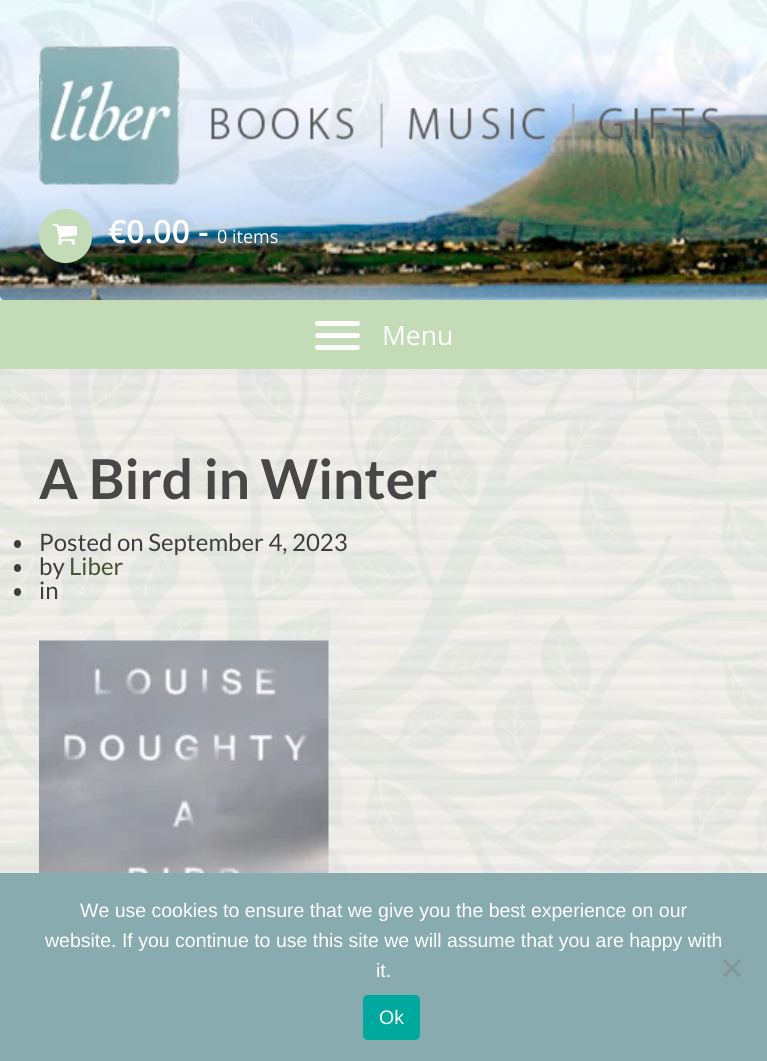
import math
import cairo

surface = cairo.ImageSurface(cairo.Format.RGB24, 767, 1061)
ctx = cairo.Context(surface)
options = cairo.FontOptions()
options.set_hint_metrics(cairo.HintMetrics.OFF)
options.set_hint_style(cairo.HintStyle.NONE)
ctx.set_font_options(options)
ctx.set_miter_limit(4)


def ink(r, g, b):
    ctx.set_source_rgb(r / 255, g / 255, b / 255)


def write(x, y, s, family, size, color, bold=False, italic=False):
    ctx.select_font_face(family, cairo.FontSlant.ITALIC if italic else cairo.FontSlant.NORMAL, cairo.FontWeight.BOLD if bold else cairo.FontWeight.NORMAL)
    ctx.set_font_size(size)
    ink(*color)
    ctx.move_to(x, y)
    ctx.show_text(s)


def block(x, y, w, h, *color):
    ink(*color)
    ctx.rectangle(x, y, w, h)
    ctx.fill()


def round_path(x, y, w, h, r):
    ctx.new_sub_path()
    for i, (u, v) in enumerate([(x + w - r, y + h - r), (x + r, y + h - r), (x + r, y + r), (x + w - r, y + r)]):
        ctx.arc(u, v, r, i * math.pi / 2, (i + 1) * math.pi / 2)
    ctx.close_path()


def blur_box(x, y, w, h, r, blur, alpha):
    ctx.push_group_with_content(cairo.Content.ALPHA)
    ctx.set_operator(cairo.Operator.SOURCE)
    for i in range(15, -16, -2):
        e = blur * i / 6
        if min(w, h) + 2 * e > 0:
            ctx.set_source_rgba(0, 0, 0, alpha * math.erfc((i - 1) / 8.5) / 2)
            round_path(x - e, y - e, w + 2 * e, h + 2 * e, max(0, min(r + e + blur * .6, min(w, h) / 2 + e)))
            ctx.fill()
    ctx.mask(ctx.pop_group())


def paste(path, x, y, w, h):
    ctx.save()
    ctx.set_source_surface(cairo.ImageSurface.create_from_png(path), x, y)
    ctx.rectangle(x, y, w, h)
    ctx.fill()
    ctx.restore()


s1 = dict(family="Open Sans SemiBold", size=32, color=(255, 255, 255))
s2 = dict(family="Open Sans", size=18, color=(255, 255, 255))
s3 = dict(family="Open Sans", size=26.5, color=(255, 255, 255))
s4 = dict(family="Lato", size=55, color=(71, 71, 71), bold=True)
s5 = dict(family="Lato", size=24, color=(62, 62, 62))
s6 = dict(family="Lato", size=24, color=(71, 82, 48))
s7 = dict(family="Liberation Sans", size=19.5, color=(255, 255, 255))

ink(255, 255, 255)
ctx.paint()
paste("pic1.png", 0, 296, 767, 577)
paste("pic2.png", 0, 298, 767, 575)
paste("pic3.png", 0, 0, 767, 300)
paste("pic4.png", 39, 45, 680, 140)
ink(196, 219, 184)
round_path(39, 209, 53, 54, 26.5)
ctx.fill()
paste("pic5.png", 52, 224, 25, 21)
write(108, 243, "€0.00 -", **s1)
write(217, 243, "0 items", **s2)
block(0, 300, 767, 69, 196, 219, 184)
ink(255, 255, 255)
round_path(315, 321, 45, 5, 2.5)
ctx.fill()
round_path(315, 333, 45, 5, 2.5)
ctx.fill()
round_path(315, 345, 45, 5, 2.5)
ctx.fill()
write(382, 345, "Menu", **s3)
write(39, 499, "A Bird in Winter", **s4)
ink(62, 62, 62)
round_path(14, 540, 7, 8, 3.5)
ctx.fill()
write(39, 551, "Posted on September 4, 2023", **s5)
round_path(14, 564, 7, 8, 3.5)
ctx.fill()
write(39, 575, "by", **s5)
write(69, 575, "Liber", **s6)
ink(62, 62, 62)
round_path(14, 588, 7, 8, 3.5)
ctx.fill()
write(39, 599, "in", **s5)
paste("pic6.png", 39, 640, 290, 233)
ink(161, 161, 161)
blur_box(66, 900, 636, 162, 8, 15, 0.95)
block(0, 873, 767, 188, 135, 171, 175)
write(80, 917, "We use cookies to ensure that we give you the best experience on our", **s7)
write(45, 947, "website. If you continue to use this site we will assume that you are happy with", **s7)
write(376, 977, "it.", **s7)
ink(132, 150, 152)
ctx.new_path()
ctx.move_to(739, 959)
ctx.line_to(741, 961.5)
ctx.line_to(725, 977.5)
ctx.line_to(723, 975)
ctx.close_path()
ctx.fill()
ctx.new_path()
ctx.move_to(723, 961.5)
ctx.line_to(725, 959)
ctx.line_to(741, 975)
ctx.line_to(739, 977.5)
ctx.close_path()
ctx.fill()
ink(0, 169, 157)
round_path(363, 995, 57, 45, 5)
ctx.fill()
write(379, 1024, "Ok", **s7)
surface.write_to_png("screenshot.png")
